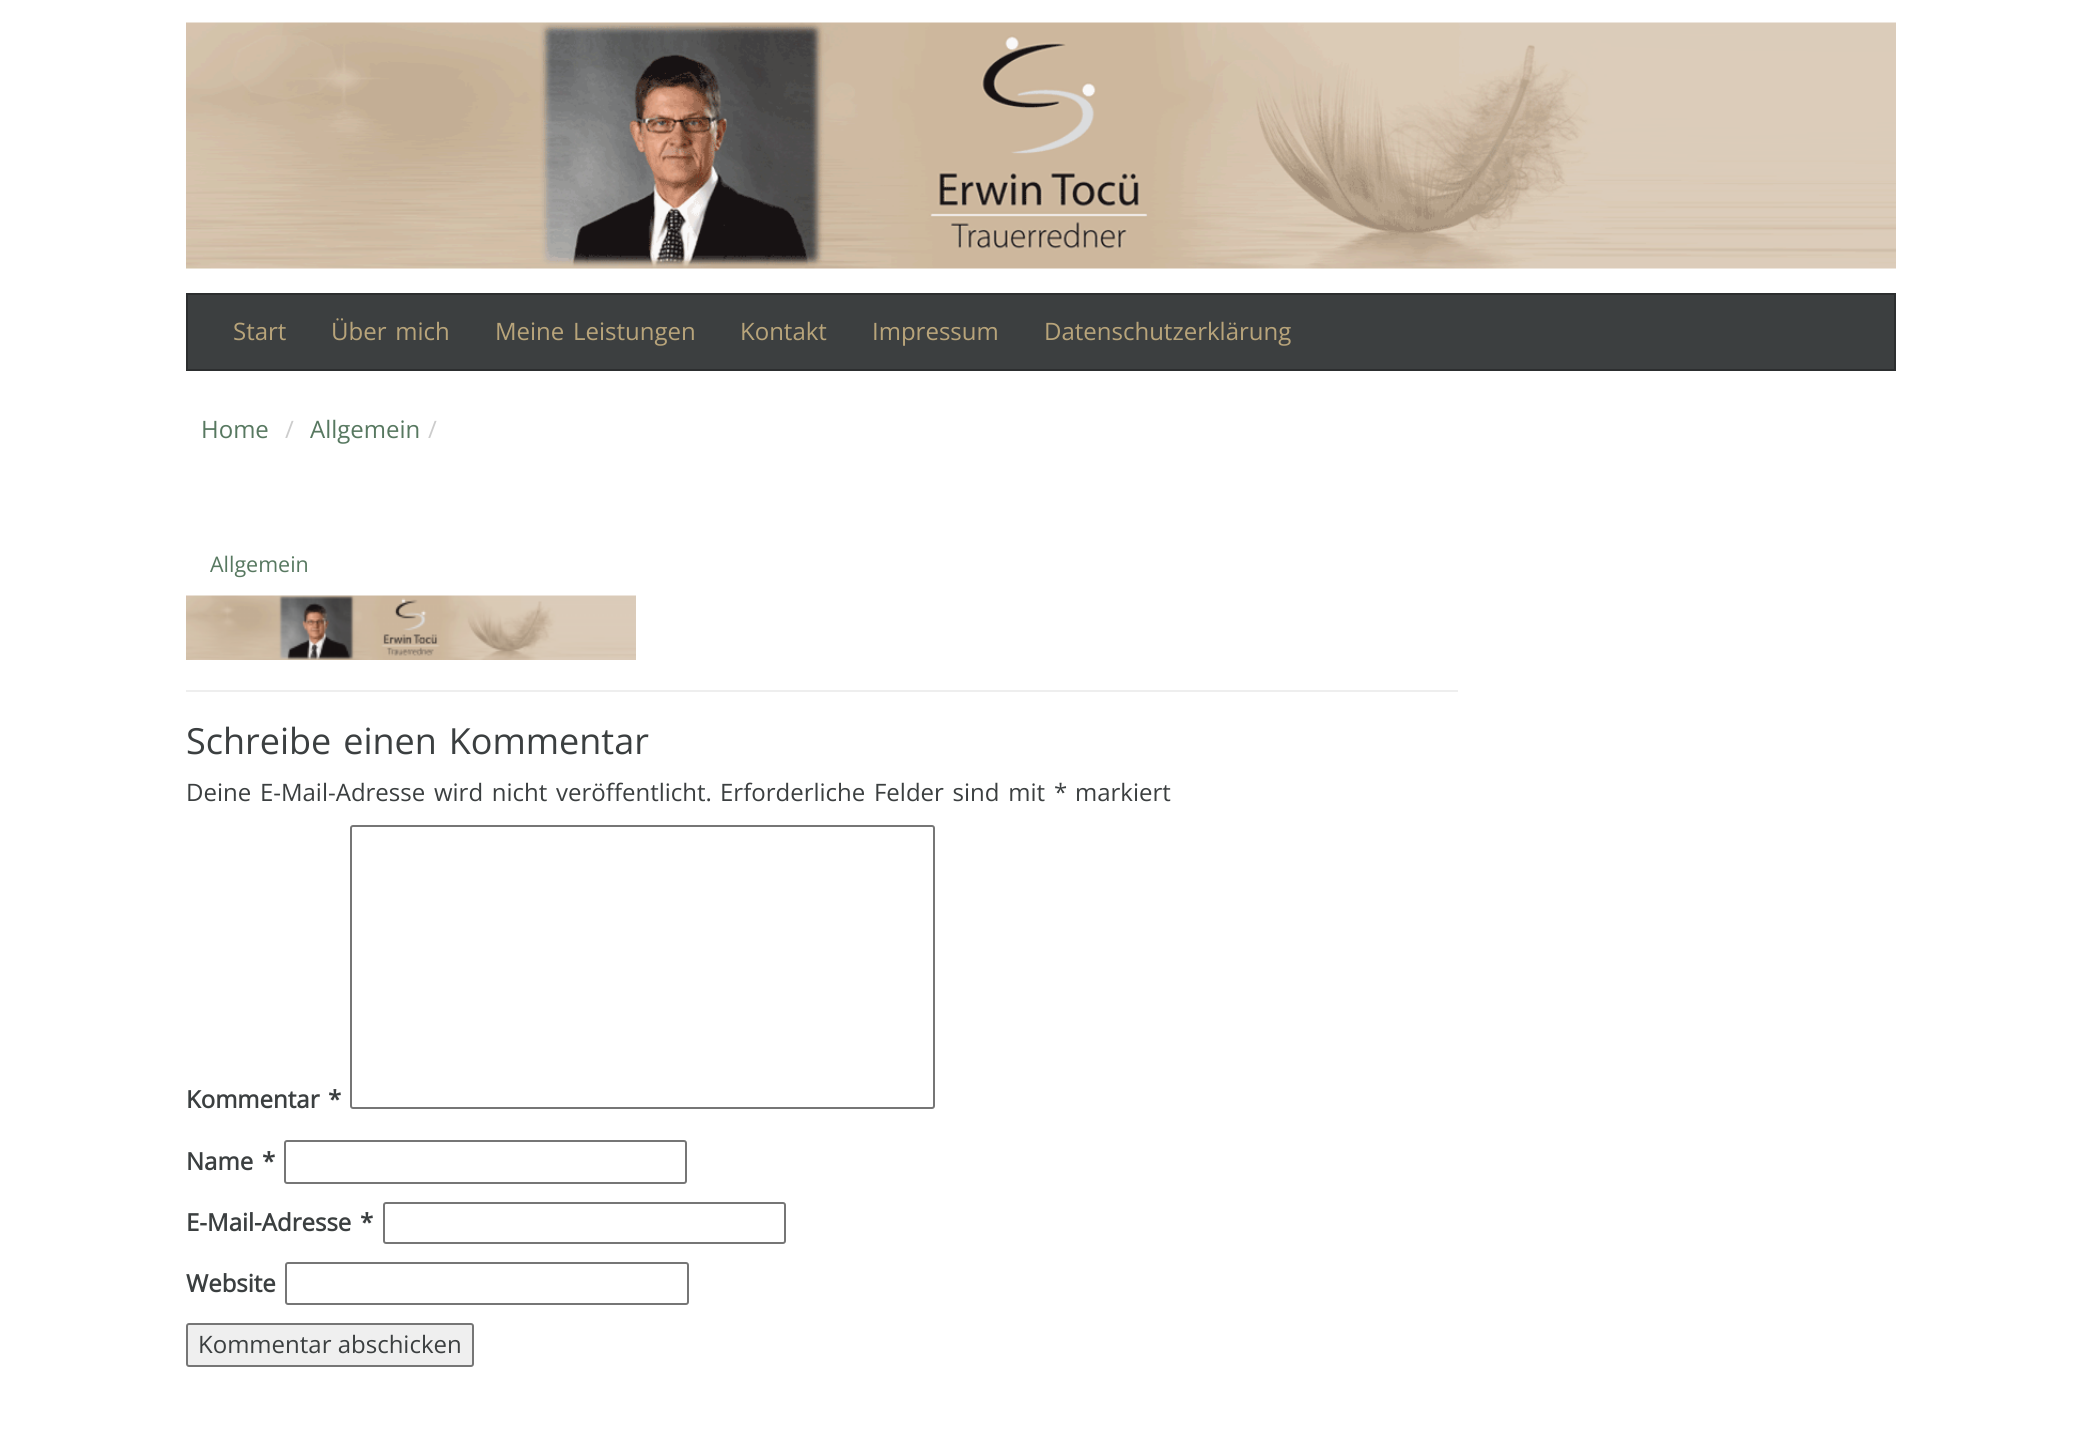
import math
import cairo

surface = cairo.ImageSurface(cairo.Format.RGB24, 2081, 1431)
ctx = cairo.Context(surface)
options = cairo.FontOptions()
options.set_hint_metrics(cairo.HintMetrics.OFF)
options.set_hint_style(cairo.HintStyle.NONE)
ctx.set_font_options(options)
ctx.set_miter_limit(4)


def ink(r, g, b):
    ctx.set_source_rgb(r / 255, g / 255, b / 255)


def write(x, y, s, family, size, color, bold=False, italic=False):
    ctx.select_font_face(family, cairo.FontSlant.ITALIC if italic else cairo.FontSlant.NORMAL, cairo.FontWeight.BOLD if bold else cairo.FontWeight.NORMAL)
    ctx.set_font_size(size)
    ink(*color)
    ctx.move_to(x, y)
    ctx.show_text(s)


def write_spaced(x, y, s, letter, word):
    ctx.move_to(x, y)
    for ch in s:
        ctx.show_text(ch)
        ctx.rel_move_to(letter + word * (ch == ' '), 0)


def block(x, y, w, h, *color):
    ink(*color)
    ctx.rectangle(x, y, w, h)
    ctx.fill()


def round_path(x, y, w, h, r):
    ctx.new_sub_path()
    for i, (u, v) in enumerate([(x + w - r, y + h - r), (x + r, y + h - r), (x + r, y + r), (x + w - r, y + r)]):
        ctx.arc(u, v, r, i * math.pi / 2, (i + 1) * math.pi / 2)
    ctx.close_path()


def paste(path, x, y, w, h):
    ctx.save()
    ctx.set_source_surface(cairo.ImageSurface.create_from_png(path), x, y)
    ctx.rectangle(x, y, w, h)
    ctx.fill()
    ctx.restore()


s1 = dict(family="Open Sans", size=24, color=(184, 164, 122))
s2 = dict(family="Open Sans", size=24, color=(87, 120, 96))
s3 = dict(family="Open Sans", size=24, color=(204, 204, 204))
s4 = dict(family="Open Sans", size=21.5, color=(87, 120, 96))
s5 = dict(family="Open Sans", size=24, color=(59, 63, 64))
s6 = dict(family="Open Sans", size=24, color=(59, 63, 64), bold=True)

ink(255, 255, 255)
ctx.paint()
paste("pic1.png", 186, 22, 1710, 247)
ink(60, 63, 64)
ctx.rectangle(187, 294, 1708, 76)
ctx.fill_preserve()
ink(44, 46, 47)
ctx.stroke()
write(233, 340, "Start", **s1)
write_spaced(331, 340, "Über mich", 0, 2.5)
write_spaced(495, 340, "Meine Leistungen", 0, 2.5)
write(740, 340, "Kontakt", **s1)
write(872, 340, "Impressum", **s1)
write(1044, 340, "Datenschutzerklärung", **s1)
write(201, 438, "Home", **s2)
write(285, 438, "/", **s3)
write(310, 438, "Allgemein", **s2)
write(428, 438, "/", **s3)
write(210, 572, "Allgemein", **s4)
paste("pic2.png", 186, 595, 450, 65)
block(186, 690, 1272, 2, 238, 238, 238)
ctx.set_font_size(36)
ink(59, 63, 64)
write_spaced(186, 754, "Schreibe einen Kommentar", 0, 2.5)
ctx.set_font_size(24)
write_spaced(186, 801, "Deine E-Mail-Adresse wird nicht veröffentlicht.", 0, 2.5)
write_spaced(720, 801, "Erforderliche Felder sind mit", 0, 2.5)
write(1054, 801, "*", **s5)
write(1075, 801, "markiert", **s5)
write(186, 1108, "Kommentar", **s6)
write(328, 1108, "*", **s6)
round_path(351, 826, 583, 282, 2)
ink(118, 118, 118)
ctx.stroke()
write(186, 1170, "Name", **s6)
write(262, 1170, "*", **s6)
round_path(285, 1141, 401, 42, 2)
ink(118, 118, 118)
ctx.stroke()
write(186, 1231, "E-Mail-Adresse", **s6)
write(360, 1231, "*", **s6)
round_path(384, 1203, 401, 40, 2)
ink(118, 118, 118)
ctx.stroke()
write(186, 1292, "Website", **s6)
round_path(286, 1263, 402, 41, 2)
ink(118, 118, 118)
ctx.stroke()
ink(239, 239, 239)
round_path(187, 1324, 286, 42, 2)
ctx.fill_preserve()
ink(118, 118, 118)
ctx.stroke()
write(198, 1353, "Kommentar abschicken", **s5)
surface.write_to_png("screenshot.png")
